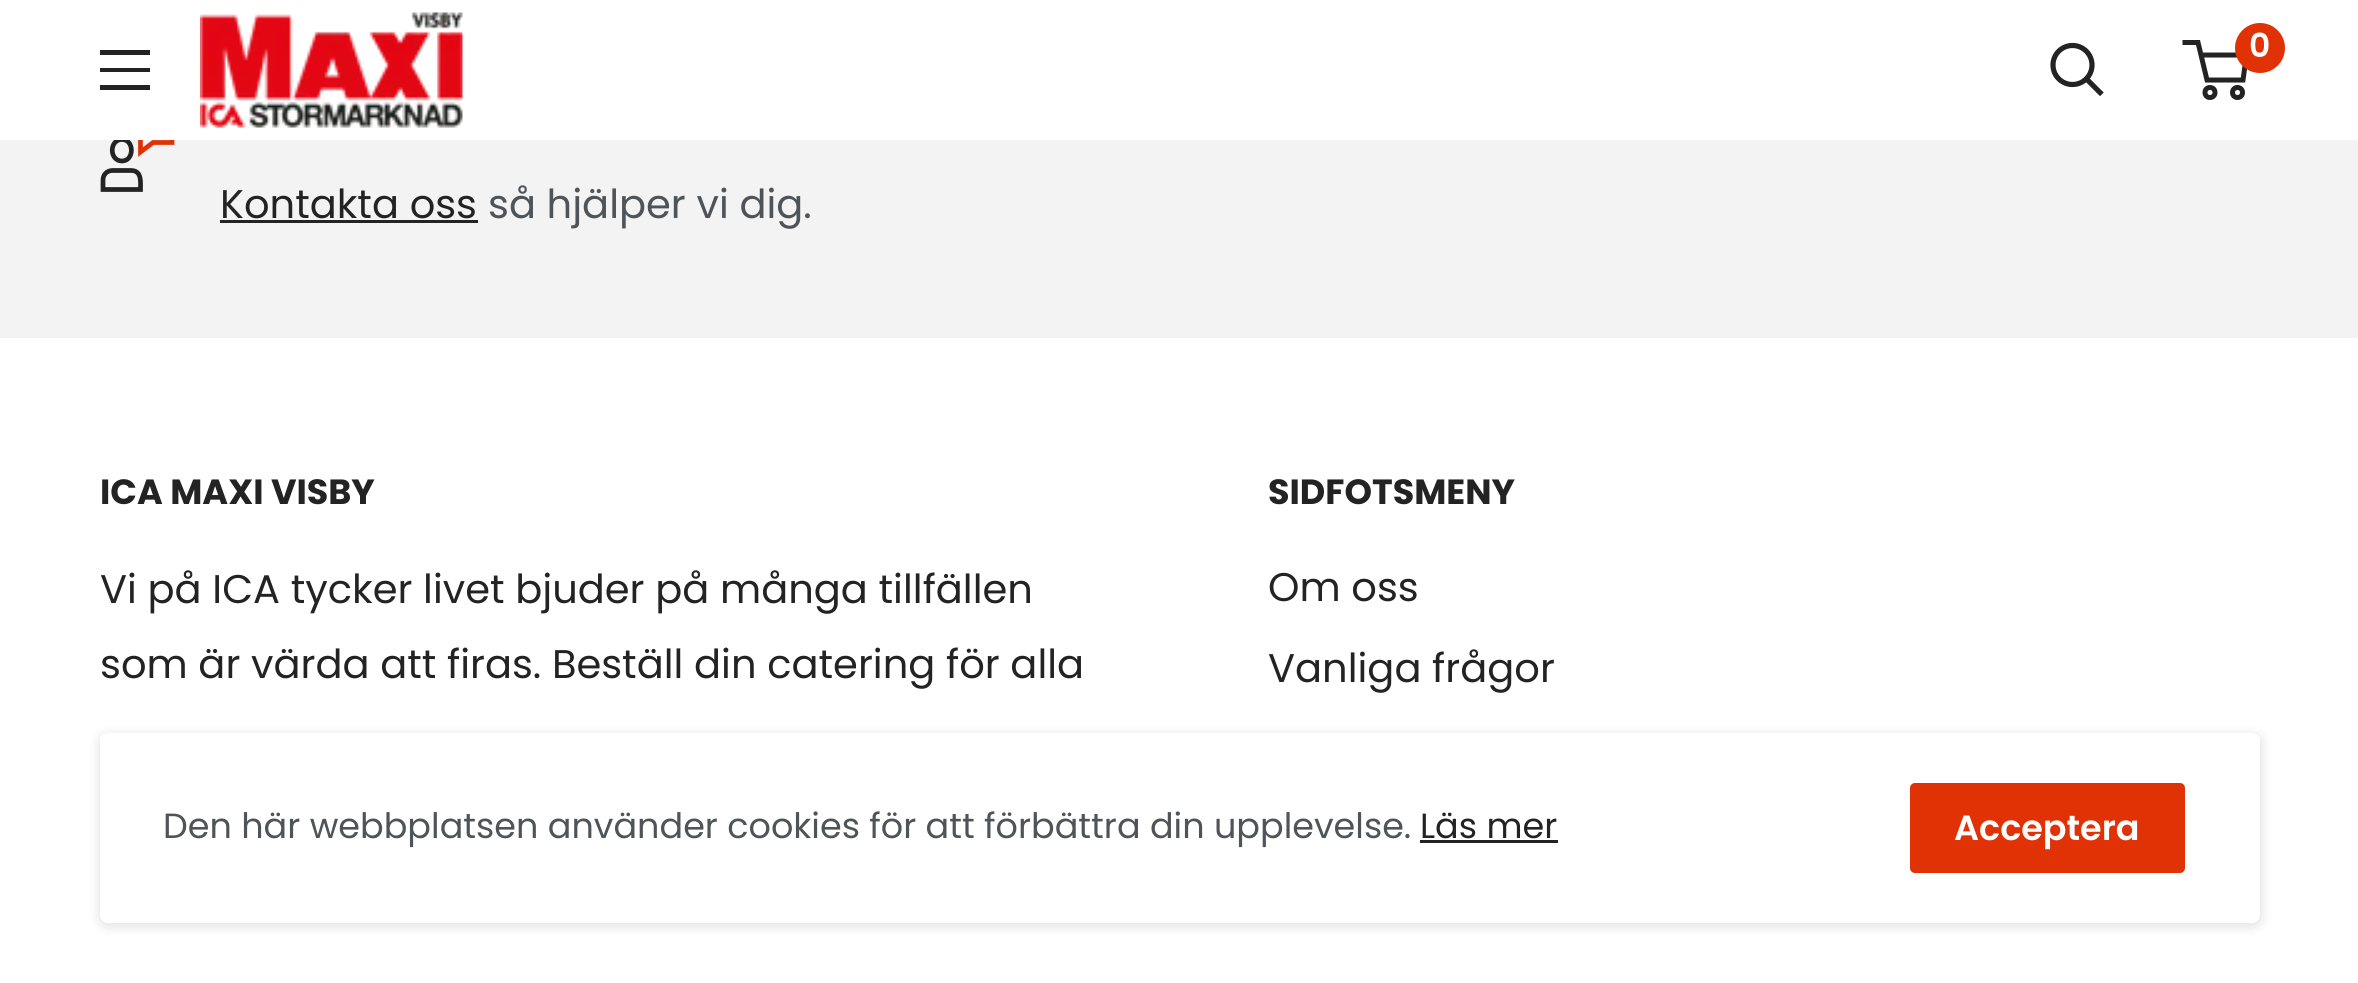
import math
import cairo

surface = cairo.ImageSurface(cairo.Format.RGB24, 2358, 983)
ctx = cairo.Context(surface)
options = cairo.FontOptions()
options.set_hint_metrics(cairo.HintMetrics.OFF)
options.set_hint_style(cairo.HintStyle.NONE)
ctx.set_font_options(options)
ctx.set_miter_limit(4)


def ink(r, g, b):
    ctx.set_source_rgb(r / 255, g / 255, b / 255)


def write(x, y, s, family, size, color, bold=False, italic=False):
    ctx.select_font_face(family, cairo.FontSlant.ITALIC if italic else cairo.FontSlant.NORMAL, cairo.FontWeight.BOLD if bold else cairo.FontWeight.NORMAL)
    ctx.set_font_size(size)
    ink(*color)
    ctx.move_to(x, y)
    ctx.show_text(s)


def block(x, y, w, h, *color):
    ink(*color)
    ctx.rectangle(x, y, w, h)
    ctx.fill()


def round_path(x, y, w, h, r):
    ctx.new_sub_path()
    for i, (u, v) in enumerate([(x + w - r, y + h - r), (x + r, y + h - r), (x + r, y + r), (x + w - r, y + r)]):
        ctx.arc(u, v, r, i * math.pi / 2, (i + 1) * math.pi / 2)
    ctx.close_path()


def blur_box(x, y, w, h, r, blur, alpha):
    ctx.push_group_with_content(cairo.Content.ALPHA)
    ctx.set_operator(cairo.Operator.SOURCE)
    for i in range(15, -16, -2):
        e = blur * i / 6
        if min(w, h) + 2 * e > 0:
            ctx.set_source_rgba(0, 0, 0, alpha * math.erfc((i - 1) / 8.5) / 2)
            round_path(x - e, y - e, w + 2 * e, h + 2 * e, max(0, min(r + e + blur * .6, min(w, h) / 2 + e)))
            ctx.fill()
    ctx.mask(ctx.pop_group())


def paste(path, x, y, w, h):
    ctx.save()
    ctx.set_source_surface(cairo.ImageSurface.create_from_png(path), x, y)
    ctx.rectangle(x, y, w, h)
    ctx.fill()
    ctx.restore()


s1 = dict(family="Poppins SemiBold", size=33, color=(255, 255, 255))
s2 = dict(family="Poppins", size=40, color=(35, 35, 35))
s3 = dict(family="Poppins", size=40, color=(79, 84, 88))
s4 = dict(family="Poppins", size=35, color=(35, 35, 35), bold=True)
s5 = dict(family="Poppins", size=35, color=(79, 84, 88))
s6 = dict(family="Poppins", size=35, color=(35, 35, 35))
s7 = dict(family="Poppins SemiBold", size=35, color=(255, 255, 255))

ink(243, 243, 243)
ctx.paint()
ctx.new_path()
ctx.move_to(131, 170.5)
ctx.line_to(112.5, 170.5)
ctx.curve_to(107, 170.5, 103, 174.5, 103, 180)
ctx.line_to(103, 189.5)
ctx.line_to(140.5, 189.5)
ctx.curve_to(140.5, 182, 142, 170.5, 131, 170.5)
ctx.close_path()
ctx.move_to(122, 161)
ctx.curve_to(109, 161, 109, 139.5, 122, 139.5)
ctx.curve_to(134.5, 139.5, 134.5, 161, 122, 161)
ctx.close_path()
ink(35, 35, 35)
ctx.set_line_width(4.7)
ctx.set_line_cap(cairo.LineCap.SQUARE)
ctx.stroke()
ctx.new_path()
ctx.move_to(140.5, 120.5)
ctx.line_to(140.5, 152)
ctx.line_to(153, 142.5)
ctx.line_to(172, 142.5)
ctx.line_to(172, 120.5)
ctx.close_path()
ink(225, 50, 6)
ctx.stroke()
block(0, 0, 2358, 140, 255, 255, 255)
ink(35, 35, 35)
ctx.set_fill_rule(cairo.FillRule.EVEN_ODD)
ctx.new_path()
ctx.move_to(100, 85)
ctx.line_to(150, 85)
ctx.line_to(150, 90)
ctx.line_to(100, 90)
ctx.close_path()
ctx.move_to(100, 50)
ctx.line_to(150, 50)
ctx.line_to(150, 55)
ctx.line_to(100, 55)
ctx.close_path()
ctx.move_to(100, 68)
ctx.line_to(150, 68)
ctx.line_to(150, 72)
ctx.line_to(100, 72)
ctx.close_path()
ctx.fill()
paste("pic1.png", 200, 12, 263, 116)
ctx.new_path()
ctx.move_to(2100, 92.5)
ctx.line_to(2086.5, 79)
ctx.set_line_width(5.2)
ctx.stroke()
ctx.arc(2072.5, 65, 19.5, 0, 2 * math.pi)
ctx.set_line_cap(cairo.LineCap.BUTT)
ctx.stroke()
ctx.arc(2210, 92.5, 5, 0, 2 * math.pi)
ctx.set_line_width(5)
ctx.stroke()
ctx.arc(2237.5, 92.5, 5, 0, 2 * math.pi)
ctx.stroke()
ctx.new_path()
ctx.move_to(2201, 55)
ctx.line_to(2246.5, 55)
ctx.line_to(2243, 80)
ctx.line_to(2207, 80)
ctx.line_to(2198, 42.5)
ctx.line_to(2182.5, 42.5)
ctx.stroke()
ink(225, 50, 6)
ctx.arc(2260, 48, 25, 0, 2 * math.pi)
ctx.fill()
write(2249, 57, "0", **s1)
write(220, 218, "Kontakta oss", **s2)
block(220, 220, 258, 3, 35, 35, 35)
write(488, 218, "så hjälper vi dig.", **s3)
block(0, 338, 2358, 645, 255, 255, 255)
write(100, 504, "ICA MAXI VISBY", **s4)
write(100, 603, "Vi på ICA tycker livet bjuder på många tillfällen", **s2)
write(100, 678, "som är värda att firas. Beställ din catering för alla", **s2)
write(1268, 504, "SIDFOTSMENY", **s4)
write(1268, 601, "Om oss", **s2)
write(1268, 682, "Vanliga frågor", **s2)
ink(0, 0, 0)
blur_box(98, 733, 2165, 195, 10, 5, 0.1)
ink(255, 255, 255)
round_path(100, 733, 2160, 190, 8)
ctx.fill()
write(163, 838, "Den här webbplatsen använder cookies för att förbättra din upplevelse.", **s5)
write(1420, 838, "Läs mer", **s6)
block(1420, 840, 138, 3, 35, 35, 35)
ink(225, 50, 6)
round_path(1910, 783, 275, 90, 5)
ctx.fill()
write(1954, 840, "Acceptera", **s7)
surface.write_to_png("screenshot.png")
